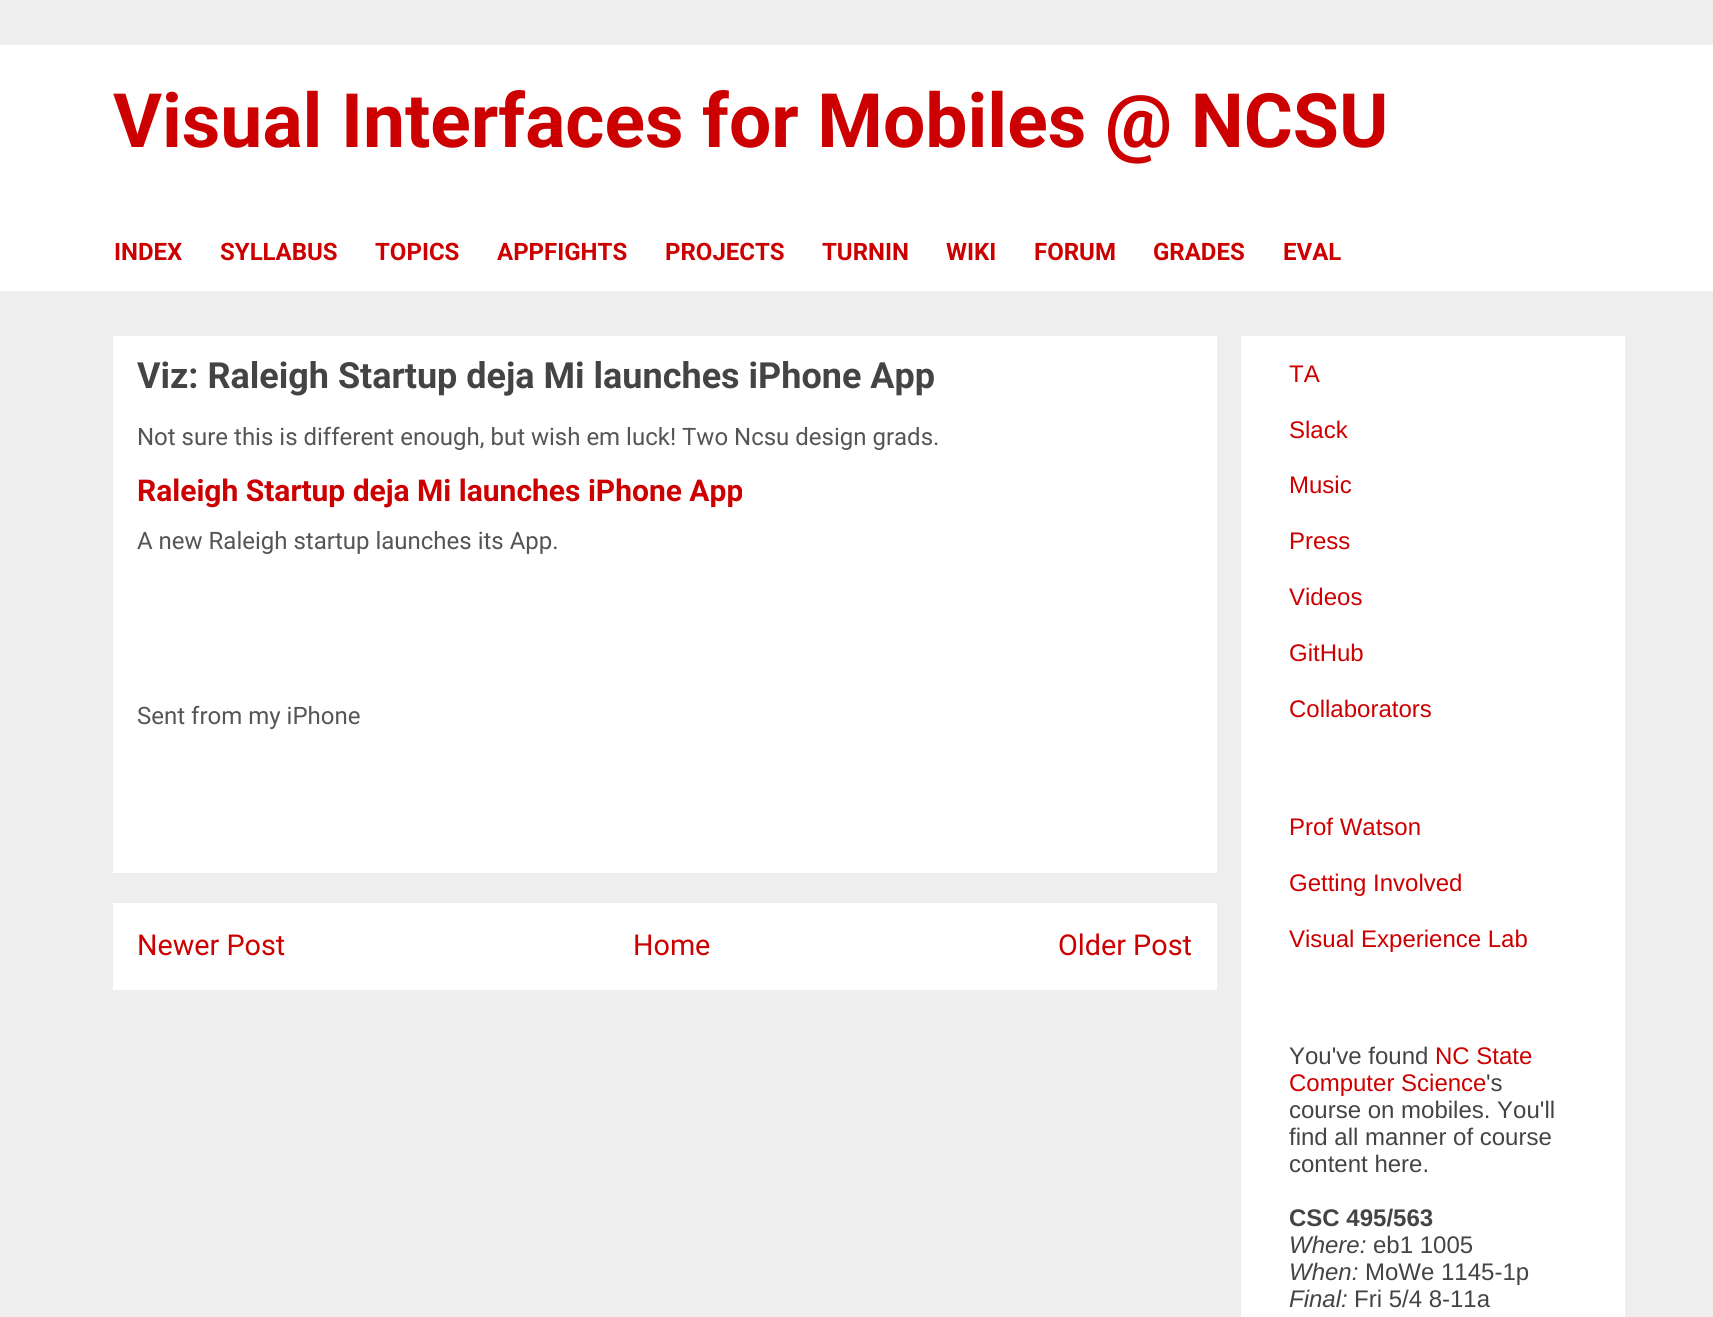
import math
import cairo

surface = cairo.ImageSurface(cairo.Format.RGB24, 1713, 1317)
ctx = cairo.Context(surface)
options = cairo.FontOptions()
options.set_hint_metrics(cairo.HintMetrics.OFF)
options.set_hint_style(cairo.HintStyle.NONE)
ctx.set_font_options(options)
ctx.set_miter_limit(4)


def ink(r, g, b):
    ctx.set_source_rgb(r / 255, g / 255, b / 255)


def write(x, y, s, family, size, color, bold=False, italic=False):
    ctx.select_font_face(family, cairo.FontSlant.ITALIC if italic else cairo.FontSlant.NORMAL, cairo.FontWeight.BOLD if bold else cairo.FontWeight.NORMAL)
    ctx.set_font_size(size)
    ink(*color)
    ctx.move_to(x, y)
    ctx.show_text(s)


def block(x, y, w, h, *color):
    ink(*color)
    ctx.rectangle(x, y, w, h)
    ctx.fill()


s1 = dict(family="Roboto", size=75, color=(204, 0, 0), bold=True)
s2 = dict(family="Roboto", size=24, color=(204, 0, 0), bold=True)
s3 = dict(family="Roboto", size=36, color=(68, 68, 68), bold=True)
s4 = dict(family="Roboto", size=24, color=(85, 85, 85))
s5 = dict(family="Roboto", size=30, color=(204, 0, 0), bold=True)
s6 = dict(family="Roboto", size=28.75, color=(204, 0, 0))
s7 = dict(family="Liberation Sans", size=24, color=(204, 0, 0))
s8 = dict(family="Liberation Sans", size=24, color=(68, 68, 68))
s9 = dict(family="Liberation Sans", size=24, color=(68, 68, 68), bold=True)
s10 = dict(family="Liberation Sans", size=24, color=(68, 68, 68), italic=True)

ink(238, 238, 238)
ctx.paint()
block(0, 45, 1713, 246, 255, 255, 255)
write(113, 147, "Visual Interfaces for Mobiles @ NCSU", **s1)
write(114, 260, "INDEX", **s2)
write(220, 260, "SYLLABUS", **s2)
write(375, 260, "TOPICS", **s2)
write(497, 260, "APPFIGHTS", **s2)
write(665, 260, "PROJECTS", **s2)
write(822, 260, "TURNIN", **s2)
write(946, 260, "WIKI", **s2)
write(1034, 260, "FORUM", **s2)
write(1153, 260, "GRADES", **s2)
write(1283, 260, "EVAL", **s2)
block(113, 336, 1104, 537, 255, 255, 255)
write(137, 388, "Viz: Raleigh Startup deja Mi launches iPhone App", **s3)
write(137, 445, "Not sure this is different enough, but wish em luck! Two Ncsu design grads.", **s4)
write(137, 501, "Raleigh Startup deja Mi launches iPhone App", **s5)
write(137, 549, "A new Raleigh startup launches its App.", **s4)
write(137, 724, "Sent from my iPhone", **s4)
block(113, 903, 1104, 87, 255, 255, 255)
write(137, 955, "Newer Post", **s6)
write(633, 955, "Home", **s6)
write(1058, 955, "Older Post", **s6)
block(1241, 336, 384, 981, 255, 255, 255)
write(1289, 382, "TA", **s7)
write(1289, 438, "Slack", **s7)
write(1289, 493, "Music", **s7)
write(1289, 549, "Press", **s7)
write(1289, 605, "Videos", **s7)
write(1289, 661, "GitHub", **s7)
write(1289, 717, "Collaborators", **s7)
write(1289, 835, "Prof Watson", **s7)
write(1289, 891, "Getting Involved", **s7)
write(1289, 947, "Visual Experience Lab", **s7)
write(1289, 1064, "You've found", **s8)
write(1435, 1064, "NC State", **s7)
write(1289, 1091, "Computer Science", **s7)
write(1486, 1091, "'s", **s8)
write(1289, 1118, "course on mobiles. You'll", **s8)
write(1289, 1145, "find all manner of course", **s8)
write(1289, 1172, "content here.", **s8)
write(1289, 1226, "CSC 495/563", **s9)
write(1289, 1253, "Where:", **s10)
write(1373, 1253, "eb1 1005", **s8)
write(1289, 1280, "When:", **s10)
write(1365, 1280, "MoWe 1145-1p", **s8)
write(1289, 1307, "Final:", **s10)
write(1354, 1307, "Fri 5/4 8-11a", **s8)
surface.write_to_png("screenshot.png")
